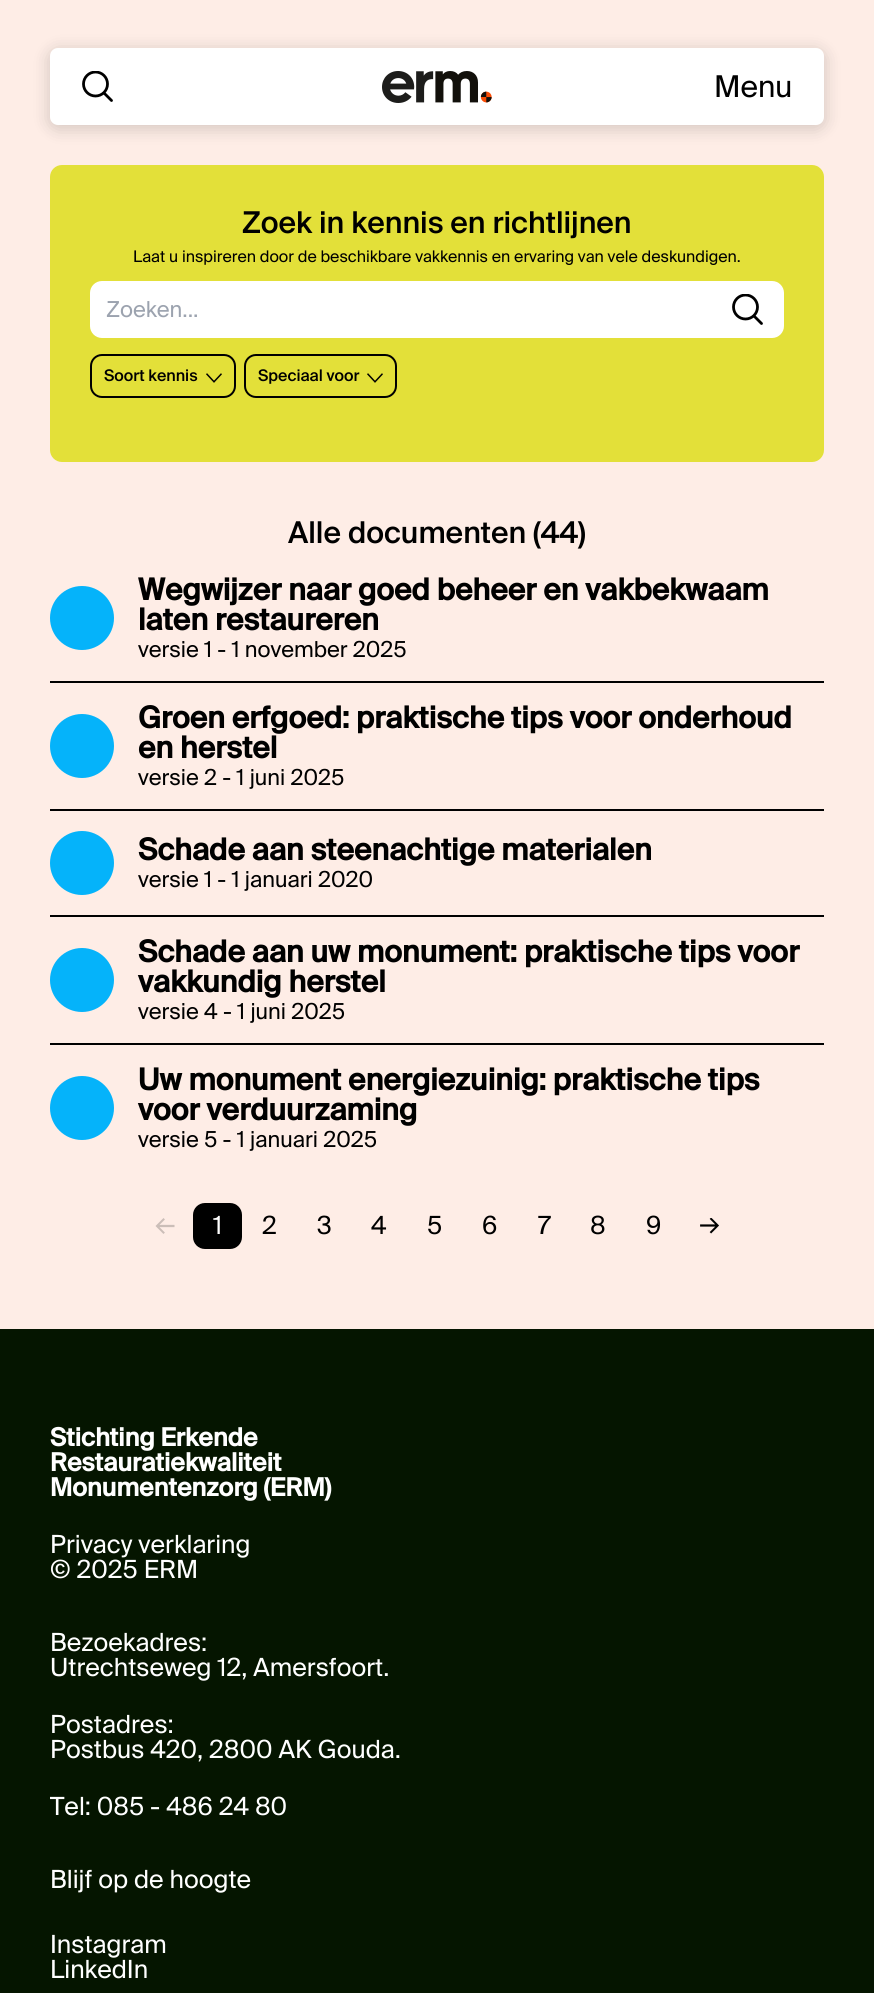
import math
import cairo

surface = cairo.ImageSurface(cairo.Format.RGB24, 874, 1993)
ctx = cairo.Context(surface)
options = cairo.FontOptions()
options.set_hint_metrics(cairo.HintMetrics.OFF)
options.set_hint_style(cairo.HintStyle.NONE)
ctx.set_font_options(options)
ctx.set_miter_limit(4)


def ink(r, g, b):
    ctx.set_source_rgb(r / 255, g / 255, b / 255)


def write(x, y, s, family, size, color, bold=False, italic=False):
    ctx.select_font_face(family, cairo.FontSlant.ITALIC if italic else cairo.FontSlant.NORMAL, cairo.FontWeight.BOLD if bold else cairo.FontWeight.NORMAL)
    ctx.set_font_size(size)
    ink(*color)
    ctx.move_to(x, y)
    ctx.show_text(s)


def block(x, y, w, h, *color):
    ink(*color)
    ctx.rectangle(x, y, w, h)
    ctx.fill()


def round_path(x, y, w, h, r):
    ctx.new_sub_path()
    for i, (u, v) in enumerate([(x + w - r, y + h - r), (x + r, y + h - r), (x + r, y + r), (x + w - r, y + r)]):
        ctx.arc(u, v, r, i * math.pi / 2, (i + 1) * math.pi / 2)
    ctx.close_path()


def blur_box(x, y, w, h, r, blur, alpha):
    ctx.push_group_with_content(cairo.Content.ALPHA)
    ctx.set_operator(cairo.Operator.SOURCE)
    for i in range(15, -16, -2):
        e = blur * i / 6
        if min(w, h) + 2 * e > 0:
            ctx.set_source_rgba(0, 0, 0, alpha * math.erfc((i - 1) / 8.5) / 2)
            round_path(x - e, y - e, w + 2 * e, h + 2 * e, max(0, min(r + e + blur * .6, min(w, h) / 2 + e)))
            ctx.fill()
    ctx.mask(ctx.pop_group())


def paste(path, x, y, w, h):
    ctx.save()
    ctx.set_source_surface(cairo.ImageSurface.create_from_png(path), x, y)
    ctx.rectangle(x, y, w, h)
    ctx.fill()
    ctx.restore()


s1 = dict(family="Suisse", size=30, color=(0, 0, 0))
s2 = dict(family="Suisse Medium", size=30, color=(0, 0, 0))
s3 = dict(family="Suisse", size=16, color=(0, 0, 0))
s4 = dict(family="Suisse", size=22, color=(156, 163, 175))
s5 = dict(family="Suisse Medium", size=16, color=(0, 0, 0))
s6 = dict(family="Suisse", size=30, color=(0, 0, 0), bold=True)
s7 = dict(family="Suisse", size=22, color=(0, 0, 0))
s8 = dict(family="Suisse", size=25, color=(255, 255, 255))
s9 = dict(family="Suisse", size=25, color=(0, 0, 0))
s10 = dict(family="Suisse", size=25, color=(255, 255, 255), bold=True)

ink(254, 237, 230)
ctx.paint()
ink(0, 0, 0)
blur_box(48, 49, 778, 81, 10, 8, 0.15)
ink(255, 255, 255)
round_path(50, 48, 774, 77, 8)
ctx.fill()
ctx.save()
ctx.rectangle(82, 71, 32, 32)
ctx.clip()
ctx.arc(95.5, 84, 12, 0, 2 * math.pi)
ink(0, 0, 0)
ctx.set_line_width(2.8)
ctx.stroke()
ctx.restore()
ctx.new_path()
ctx.move_to(104, 93)
ctx.line_to(111.5, 100.5)
ink(0, 0, 0)
ctx.set_line_width(2.8)
ctx.set_line_cap(cairo.LineCap.ROUND)
ctx.stroke()
paste("pic1.png", 382, 71, 110, 32)
write(714, 97, "Menu", **s1)
ink(227, 224, 57)
round_path(50, 165, 774, 297, 12)
ctx.fill()
write(242, 233, "Zoek in kennis en richtlijnen", **s2)
write(133, 262, "Laat u inspireren door de beschikbare vakkennis en ervaring van vele deskundigen.", **s3)
ink(255, 255, 255)
round_path(90, 281, 694, 57, 12)
ctx.fill()
write(106, 317, "Zoeken...", **s4)
ctx.save()
ctx.rectangle(732, 294, 32, 32)
ctx.clip()
ctx.arc(745.5, 307, 12, 0, 2 * math.pi)
ink(0, 0, 0)
ctx.set_line_cap(cairo.LineCap.BUTT)
ctx.stroke()
ctx.restore()
ctx.new_path()
ctx.move_to(754, 316)
ctx.line_to(761.5, 323.5)
ink(0, 0, 0)
ctx.stroke()
round_path(91, 355, 144, 42, 11)
ctx.set_line_width(2)
ctx.set_line_cap(cairo.LineCap.BUTT)
ctx.stroke()
write(104, 381, "Soort kennis", **s5)
paste("pic2.png", 206, 373, 16, 10)
round_path(245, 355, 151, 42, 11)
ctx.stroke()
write(258, 381, "Speciaal voor", **s5)
paste("pic2.png", 367, 373, 16, 10)
write(288, 543, "Alle documenten (44)", **s2)
block(50, 681, 774, 2, 0, 0, 0)
ink(5, 179, 250)
ctx.new_path()
ctx.arc(82, 618, 32, 0, 2 * math.pi)
ctx.fill()
write(138, 600, "Wegwijzer naar goed beheer en vakbekwaam", **s6)
write(138, 630, "laten restaureren", **s6)
write(138, 657, "versie 1 - 1 november 2025", **s7)
block(50, 809, 774, 2, 0, 0, 0)
ink(5, 179, 250)
ctx.new_path()
ctx.arc(82, 746, 32, 0, 2 * math.pi)
ctx.fill()
write(138, 728, "Groen erfgoed: praktische tips voor onderhoud", **s6)
write(138, 758, "en herstel", **s6)
write(138, 785, "versie 2 - 1 juni 2025", **s7)
block(50, 915, 774, 2, 0, 0, 0)
ink(5, 179, 250)
ctx.new_path()
ctx.arc(82, 863, 32, 0, 2 * math.pi)
ctx.fill()
write(138, 860, "Schade aan steenachtige materialen", **s6)
write(138, 887, "versie 1 - 1 januari 2020", **s7)
block(50, 1043, 774, 2, 0, 0, 0)
ink(5, 179, 250)
ctx.new_path()
ctx.arc(82, 980, 32, 0, 2 * math.pi)
ctx.fill()
write(138, 962, "Schade aan uw monument: praktische tips voor", **s6)
write(138, 992, "vakkundig herstel", **s6)
write(138, 1019, "versie 4 - 1 juni 2025", **s7)
ink(5, 179, 250)
ctx.new_path()
ctx.arc(82, 1108, 32, 0, 2 * math.pi)
ctx.fill()
write(138, 1090, "Uw monument energiezuinig: praktische tips", **s6)
write(138, 1120, "voor verduurzaming", **s6)
write(138, 1147, "versie 5 - 1 januari 2025", **s7)
paste("pic3.png", 155, 1218, 20, 16)
round_path(193, 1203, 49, 46, 12)
ctx.fill()
write(213, 1234, "1", **s8)
write(262, 1234, "2", **s9)
write(317, 1234, "3", **s9)
write(371, 1234, "4", **s9)
write(427, 1234, "5", **s9)
write(482, 1234, "6", **s9)
write(538, 1234, "7", **s9)
write(590, 1234, "8", **s9)
write(646, 1234, "9", **s9)
paste("pic4.png", 700, 1218, 19, 16)
block(0, 1329, 874, 664, 5, 21, 0)
write(50, 1446, "Stichting Erkende", **s10)
write(50, 1471, "Restauratiekwaliteit", **s10)
write(50, 1496, "Monumentenzorg (ERM)", **s10)
write(50, 1553, "Privacy verklaring", **s8)
write(50, 1578, "© 2025 ERM", **s8)
write(50, 1651, "Bezoekadres:", **s8)
write(50, 1676, "Utrechtseweg 12, Amersfoort.", **s8)
write(50, 1733, "Postadres:", **s8)
write(50, 1758, "Postbus 420, 2800 AK Gouda.", **s8)
write(50, 1815, "Tel: 085 - 486 24 80", **s8)
write(50, 1888, "Blijf op de hoogte", **s8)
write(50, 1953, "Instagram", **s8)
write(50, 1978, "LinkedIn", **s8)
surface.write_to_png("screenshot.png")
